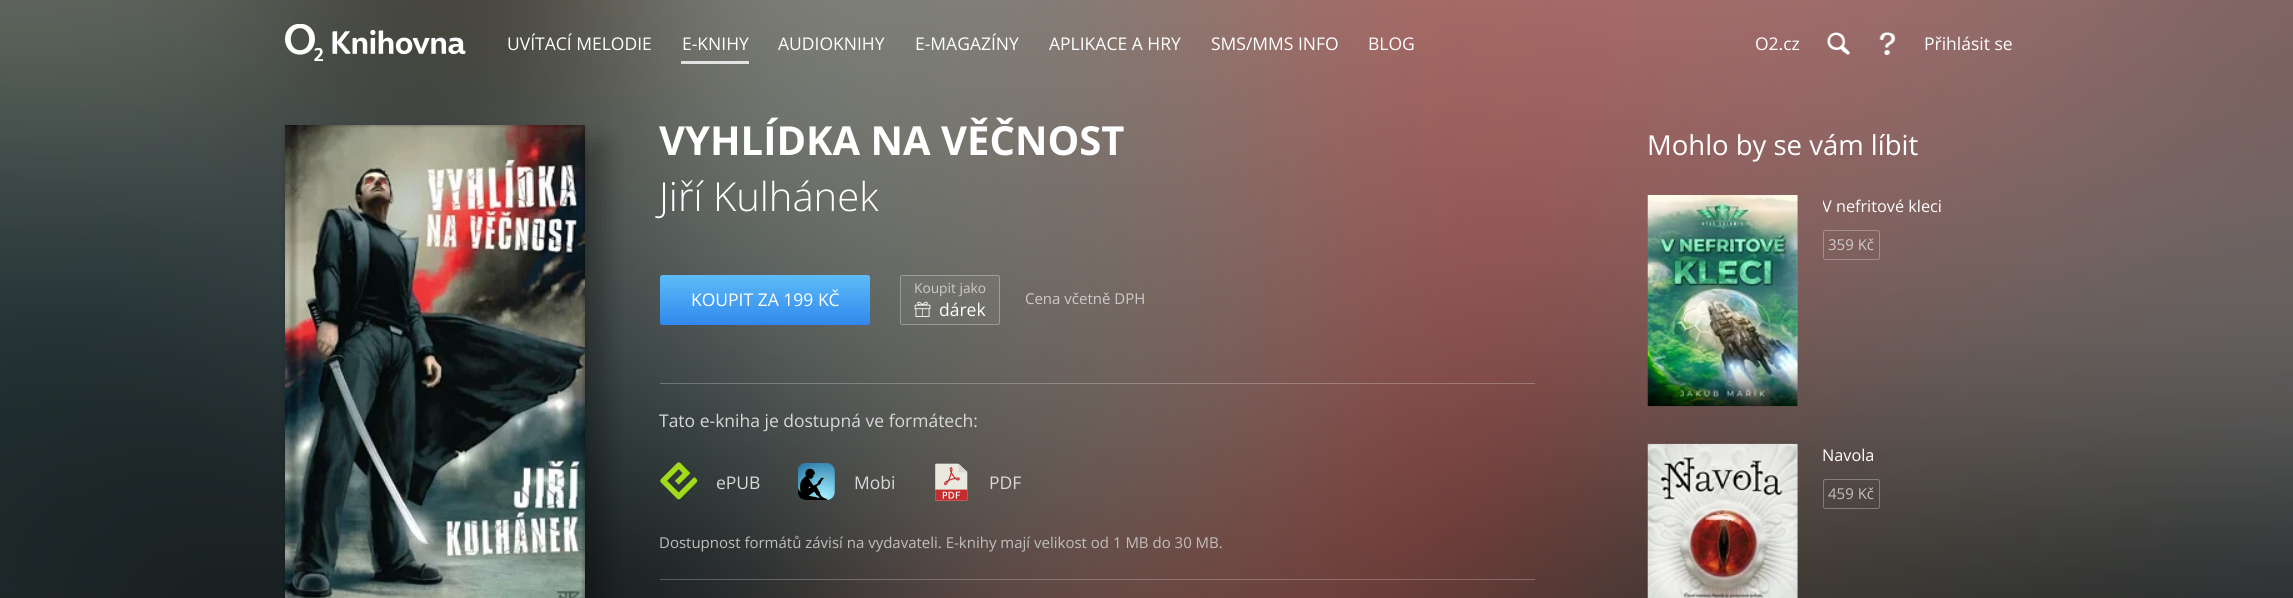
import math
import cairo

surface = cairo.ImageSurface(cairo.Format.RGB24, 2293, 598)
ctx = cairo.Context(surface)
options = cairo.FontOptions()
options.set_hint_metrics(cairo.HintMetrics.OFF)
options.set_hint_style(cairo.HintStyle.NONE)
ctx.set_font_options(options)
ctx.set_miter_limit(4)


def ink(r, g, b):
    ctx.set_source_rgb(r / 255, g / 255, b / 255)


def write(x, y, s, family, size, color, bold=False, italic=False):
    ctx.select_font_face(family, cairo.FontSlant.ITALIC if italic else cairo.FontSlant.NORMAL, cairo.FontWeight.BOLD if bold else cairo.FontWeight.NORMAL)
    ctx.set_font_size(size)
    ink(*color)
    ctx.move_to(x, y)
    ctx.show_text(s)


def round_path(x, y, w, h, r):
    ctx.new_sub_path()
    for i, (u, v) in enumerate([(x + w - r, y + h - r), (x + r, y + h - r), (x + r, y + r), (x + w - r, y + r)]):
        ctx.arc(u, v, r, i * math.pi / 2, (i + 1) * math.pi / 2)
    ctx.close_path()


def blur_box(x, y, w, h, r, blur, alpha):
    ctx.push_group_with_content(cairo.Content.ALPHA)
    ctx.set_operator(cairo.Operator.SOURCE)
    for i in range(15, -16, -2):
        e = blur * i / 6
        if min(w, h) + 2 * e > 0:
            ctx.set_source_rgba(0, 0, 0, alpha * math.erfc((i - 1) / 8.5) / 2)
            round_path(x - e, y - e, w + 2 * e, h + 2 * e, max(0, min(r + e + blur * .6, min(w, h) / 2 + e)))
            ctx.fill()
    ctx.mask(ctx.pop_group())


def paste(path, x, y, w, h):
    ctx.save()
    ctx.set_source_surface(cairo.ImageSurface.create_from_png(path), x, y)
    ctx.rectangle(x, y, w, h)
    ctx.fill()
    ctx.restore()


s1 = dict(family="Open Sans", size=17.5, color=(255, 255, 255))
s2 = dict(family="Open Sans", size=40, color=(255, 255, 255), bold=True)
s3 = dict(family="Open Sans Light", size=40, color=(255, 255, 255))
s4 = dict(family="Open Sans", size=13.75, color=(206, 202, 200))
s5 = dict(family="Open Sans", size=15, color=(206, 202, 200))
s6 = dict(family="Open Sans", size=17.5, color=(217, 217, 217))
s7 = dict(family="Open Sans", size=15, color=(193, 190, 189))
s8 = dict(family="Open Sans", size=27.5, color=(255, 255, 255))
s9 = dict(family="Open Sans", size=16.25, color=(255, 255, 255))

ink(255, 255, 255)
ctx.paint()
paste("pic1.png", 0, 0, 2293, 598)
paste("pic2.png", 285, 24, 181, 37)
write(507, 50, "UVÍTACÍ MELODIE", **s1)
write(682, 50, "E-KNIHY", **s1)
ctx.set_source_rgba(1, 1, 1, 0.8)
ctx.rectangle(681, 61, 68, 3)
ctx.fill()
write(778, 50, "AUDIOKNIHY", **s1)
write(915, 50, "E-MAGAZÍNY", **s1)
write(1049, 50, "APLIKACE A HRY", **s1)
write(1211, 50, "SMS/MMS INFO", **s1)
write(1368, 50, "BLOG", **s1)
write(1755, 50, "O2.cz", **s1)
paste("pic3.png", 1826, 32, 24, 23)
paste("pic4.png", 1879, 32, 17, 23)
write(1924, 50, "Přihlásit se", **s1)
ink(0, 0, 0)
blur_box(285, 128, 300, 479, 0, 3, 0.2)
paste("pic7.png", 285, 125, 300, 473)
ctx.save()
ctx.rectangle(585, 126, 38, 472)
ctx.clip()
blur_box(304, 144, 300, 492, 0, 12.5, 0.3)
ctx.restore()
paste("pic5.png", 285, 125, 300, 5)
paste("pic6.png", 288, 130, 297, 468)
write(659, 155, "VYHLÍDKA NA VĚČNOST", **s2)
write(659, 211, "Jiří Kulhánek", **s3)
gradient = cairo.LinearGradient(765, 275, 765, 325)
gradient.add_color_stop_rgba(0, 0.365, 0.737, 0.969, 1)
gradient.add_color_stop_rgba(1, 0.192, 0.533, 0.929, 1)
ctx.set_source(gradient)
round_path(660, 275, 210, 50, 2.5)
ctx.fill()
write(691, 306, "KOUPIT ZA 199 KČ", **s1)
ctx.set_source_rgba(1, 1, 1, 0.05)
ctx.rectangle(900, 275, 100, 50)
ctx.fill()
round_path(900.5, 275.5, 99, 49, 2)
ctx.set_source_rgba(1, 1, 1, 0.3)
ctx.set_line_width(1)
ctx.stroke()
write(914, 293, "Koupit jako", **s4)
paste("pic8.png", 914, 301, 17, 16)
write(939, 316, "dárek", **s1)
write(1025, 304, "Cena včetně DPH", **s5)
ctx.set_source_rgba(1, 1, 1, 0.25)
ctx.rectangle(660, 383, 875, 1)
ctx.fill()
write(659, 427, "Tato e-kniha je dostupná ve formátech:", **s6)
paste("pic9.png", 660, 462, 38, 38)
write(716, 489, "ePUB", **s6)
paste("pic10.png", 798, 463, 37, 37)
write(854, 489, "Mobi", **s6)
paste("pic11.png", 935, 463, 33, 38)
write(989, 489, "PDF", **s6)
write(659, 548, "Dostupnost formátů závisí na vydavateli. E-knihy mají velikost od 1 MB do 30 MB.", **s7)
ctx.set_source_rgba(1, 1, 1, 0.25)
ctx.rectangle(660, 579, 875, 1)
ctx.fill()
write(1647, 155, "Mohlo by se vám líbit", **s8)
ctx.set_source_rgba(1, 1, 1, 0.1)
ctx.rectangle(1797, 195, 1, 211)
ctx.fill()
paste("pic12.png", 1647, 195, 151, 212)
ctx.save()
ctx.rectangle(1823, 195, 118, 23)
ctx.clip()
write(1822, 212, "V nefritové kleci", **s9)
ctx.restore()
round_path(1823.5, 230.5, 56, 29, 2)
ctx.set_source_rgba(1, 1, 1, 0.3)
ctx.stroke()
write(1828, 250, "359 Kč", **s5)
ctx.set_source_rgba(1, 1, 1, 0.1)
ctx.rectangle(1797, 444, 1, 154)
ctx.fill()
paste("pic13.png", 1647, 443, 151, 155)
write(1822, 461, "Navola", **s9)
round_path(1823.5, 479.5, 56, 29, 2)
ctx.set_source_rgba(1, 1, 1, 0.3)
ctx.stroke()
write(1828, 499, "459 Kč", **s7)
surface.write_to_png("screenshot.png")
